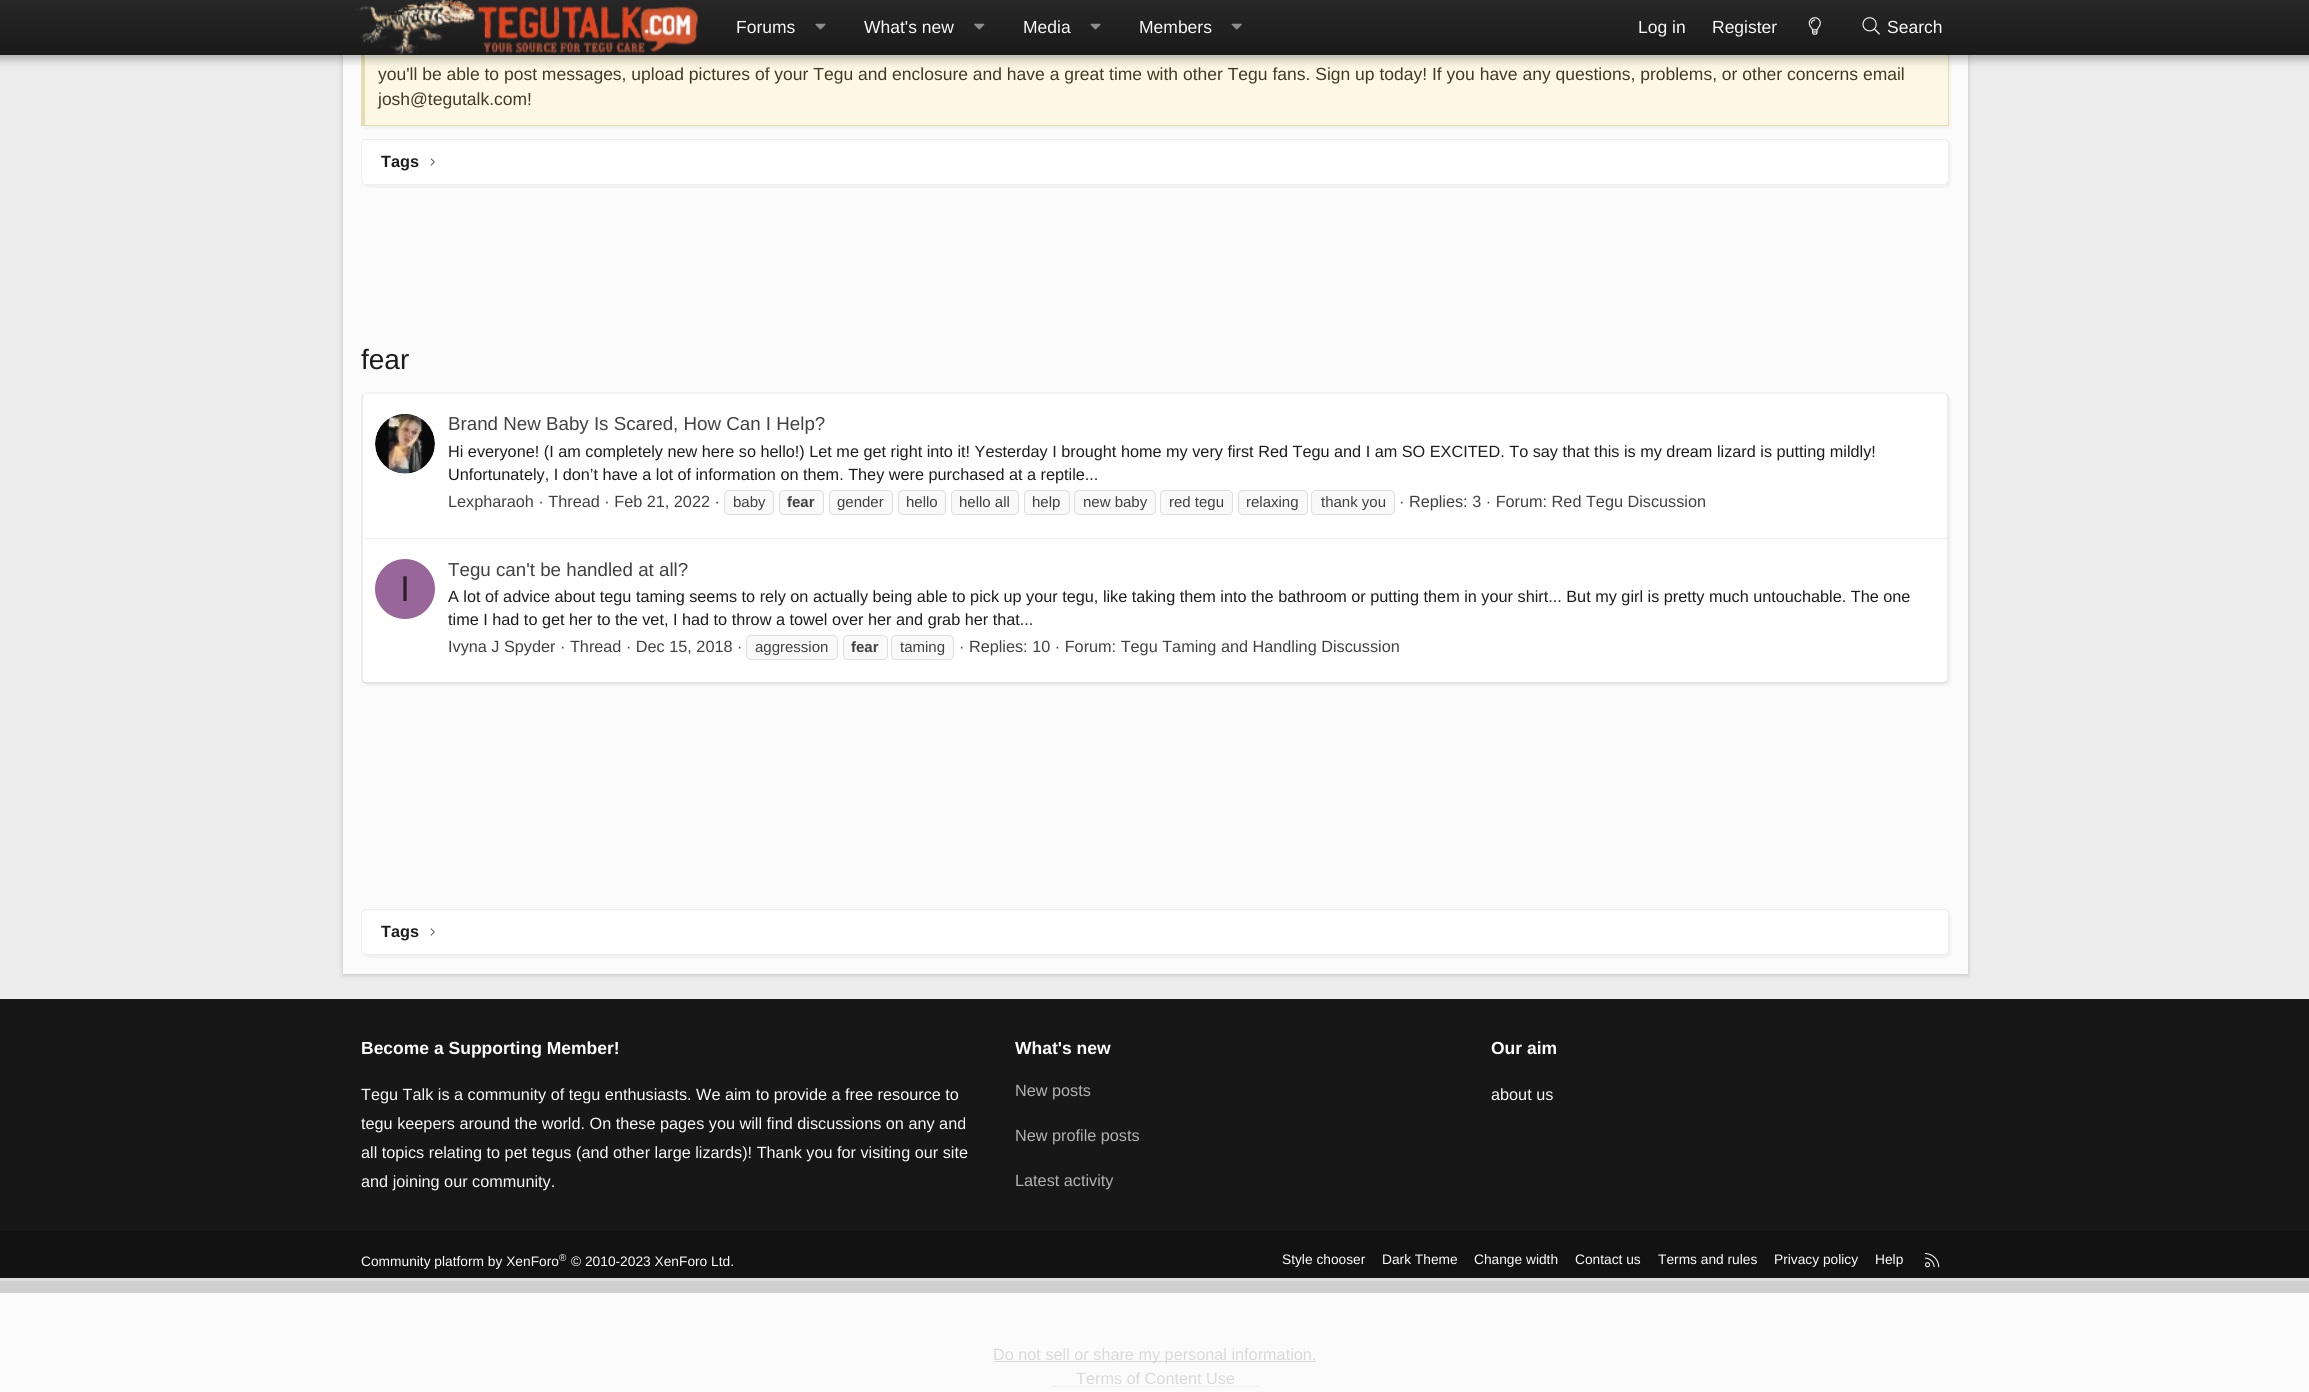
import math
import cairo

surface = cairo.ImageSurface(cairo.Format.RGB24, 2309, 1392)
ctx = cairo.Context(surface)
options = cairo.FontOptions()
options.set_hint_metrics(cairo.HintMetrics.OFF)
options.set_hint_style(cairo.HintStyle.NONE)
ctx.set_font_options(options)
ctx.set_miter_limit(4)


def ink(r, g, b):
    ctx.set_source_rgb(r / 255, g / 255, b / 255)


def write(x, y, s, family, size, color, bold=False, italic=False):
    ctx.select_font_face(family, cairo.FontSlant.ITALIC if italic else cairo.FontSlant.NORMAL, cairo.FontWeight.BOLD if bold else cairo.FontWeight.NORMAL)
    ctx.set_font_size(size)
    ink(*color)
    ctx.move_to(x, y)
    ctx.show_text(s)


def block(x, y, w, h, *color):
    ink(*color)
    ctx.rectangle(x, y, w, h)
    ctx.fill()


def round_path(x, y, w, h, r):
    ctx.new_sub_path()
    for i, (u, v) in enumerate([(x + w - r, y + h - r), (x + r, y + h - r), (x + r, y + r), (x + w - r, y + r)]):
        ctx.arc(u, v, r, i * math.pi / 2, (i + 1) * math.pi / 2)
    ctx.close_path()


def blur_box(x, y, w, h, r, blur, alpha):
    ctx.push_group_with_content(cairo.Content.ALPHA)
    ctx.set_operator(cairo.Operator.SOURCE)
    for i in range(15, -16, -2):
        e = blur * i / 6
        if min(w, h) + 2 * e > 0:
            ctx.set_source_rgba(0, 0, 0, alpha * math.erfc((i - 1) / 8.5) / 2)
            round_path(x - e, y - e, w + 2 * e, h + 2 * e, max(0, min(r + e + blur * .6, min(w, h) / 2 + e)))
            ctx.fill()
    ctx.mask(ctx.pop_group())


def paste(path, x, y, w, h):
    ctx.save()
    ctx.set_source_surface(cairo.ImageSurface.create_from_png(path), x, y)
    ctx.rectangle(x, y, w, h)
    ctx.fill()
    ctx.restore()


s1 = dict(family="Liberation Sans", size=17.5, color=(249, 249, 249))
s2 = dict(family="Liberation Sans", size=17.5, color=(63, 58, 35))
s3 = dict(family="Liberation Sans", size=16.25, color=(29, 29, 29), bold=True)
s4 = dict(family="Liberation Sans", size=28, color=(29, 29, 29))
s5 = dict(family="Liberation Sans", size=18.75, color=(65, 65, 65))
s6 = dict(family="Liberation Sans", size=16.25, color=(29, 29, 29))
s7 = dict(family="Liberation Sans", size=16.25, color=(65, 65, 65))
s8 = dict(family="Liberation Sans", size=15, color=(65, 65, 65))
s9 = dict(family="Liberation Sans", size=15, color=(65, 65, 65), bold=True)
s10 = dict(family="Liberation Sans", size=36, color=(46, 31, 46))
s11 = dict(family="Liberation Sans", size=17.5, color=(255, 254, 254), bold=True)
s12 = dict(family="Liberation Sans", size=16.25, color=(249, 249, 249))
s13 = dict(family="Liberation Sans", size=16.25, color=(178, 178, 178))
s14 = dict(family="Liberation Sans", size=13.75, color=(255, 254, 254))
s15 = dict(family="Liberation Sans", size=10, color=(255, 254, 254))
s16 = dict(family="Liberation Sans", size=16.25, color=(217, 217, 217))

ink(237, 237, 237)
ctx.paint()
block(0, 1293, 2309, 99, 251, 251, 251)
ink(194, 194, 194)
blur_box(343, 8, 1625, 967, 0, 2.5, 1)
block(343, 55, 1625, 919, 251, 251, 251)
ink(0, 0, 0)
blur_box(364, 28, 1587, 101, 0, 1, 0.04)
block(365, 55, 1583, 70, 252, 248, 227)
block(1948, 55, 1, 71, 230, 221, 176)
block(361, 125, 1588, 1, 230, 221, 176)
block(361, 55, 4, 71, 230, 221, 176)
ink(0, 0, 0)
blur_box(-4, -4, 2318, 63, 0, 5, 0.3)
gradient = cairo.LinearGradient(1155, 0, 1155, 55)
gradient.add_color_stop_rgba(0, 0.153, 0.153, 0.153, 1)
gradient.add_color_stop_rgba(1, 0.102, 0.102, 0.102, 1)
ctx.set_source(gradient)
ctx.rectangle(0, 0, 2309, 55)
ctx.fill()
paste("pic1.png", 355, 0, 343, 55)
write(736, 33, "Forums", **s1)
paste("pic2.png", 815, 23, 11, 7)
write(864, 33, "What's new", **s1)
paste("pic3.png", 974, 23, 11, 7)
write(1023, 33, "Media", **s1)
paste("pic2.png", 1090, 23, 11, 7)
write(1139, 33, "Members", **s1)
paste("pic4.png", 1231, 23, 11, 7)
write(1638, 33, "Log in", **s1)
write(1712, 33, "Register", **s1)
paste("pic5.png", 1808, 17, 13, 18)
paste("pic6.png", 1862, 17, 18, 18)
write(1887, 33, "Search", **s1)
write(378, 80, "you'll be able to post messages, upload pictures of your Tegu and enclosure and have a great time with other Tegu fans. Sign up today! If you have any questions, problems, or other concerns email", **s2)
write(378, 105, "josh@tegutalk.com!", **s2)
ink(0, 0, 0)
blur_box(364, 141, 1587, 47, 5, 1, 0.04)
ink(255, 255, 255)
round_path(361.5, 139.5, 1587, 45, 4.5)
ctx.fill_preserve()
ink(238, 238, 238)
ctx.set_line_width(1)
ctx.stroke()
write(381, 167, "Tags", **s3)
paste("pic7.png", 430, 158, 5, 8)
write(361, 369, "fear", **s4)
ink(0, 0, 0)
blur_box(364, 395, 1587, 291, 5, 1, 0.04)
ink(255, 255, 255)
round_path(361, 393, 1588, 291, 5)
ctx.fill()
ctx.new_path()
ctx.move_to(363, 394.5)
ctx.line_to(366, 393)
ctx.line_to(1944, 393)
ctx.line_to(1947, 394.5)
ink(238, 238, 238)
ctx.set_line_width(1.2)
ctx.stroke()
ctx.new_path()
ctx.move_to(1947, 394.5)
ctx.curve_to(1947.5, 395, 1948, 396.5, 1948, 397.5)
ctx.line_to(1948, 679)
ctx.curve_to(1948, 680, 1947.5, 681, 1947, 682)
ink(223, 223, 223)
ctx.stroke()
ctx.new_path()
ctx.move_to(1947, 682)
ctx.line_to(1944, 683)
ctx.line_to(366, 683)
ctx.line_to(363, 682)
ink(210, 210, 210)
ctx.stroke()
ctx.new_path()
ctx.move_to(363, 682)
ctx.curve_to(362.5, 681, 362, 680, 362, 679)
ctx.line_to(362, 397.5)
ctx.curve_to(362, 396.5, 362.5, 395, 363, 394.5)
ink(223, 223, 223)
ctx.stroke()
paste("pic8.png", 375, 414, 60, 60)
write(448, 430, "Brand New Baby Is Scared, How Can I Help?", **s5)
write(448, 457, "Hi everyone! (I am completely new here so hello!) Let me get right into it! Yesterday I brought home my very first Red Tegu and I am SO EXCITED. To say that this is my dream lizard is putting mildly!", **s6)
write(448, 480, "Unfortunately, I don’t have a lot of information on them. They were purchased at a reptile...", **s6)
write(448, 507, "Lexpharaoh · Thread · Feb 21, 2022 ·", **s7)
ink(249, 249, 249)
round_path(724.5, 490.5, 49, 24, 4.5)
ctx.fill_preserve()
ink(223, 223, 223)
ctx.set_line_width(1)
ctx.stroke()
write(733, 507, "baby", **s8)
ink(249, 249, 249)
round_path(779.5, 490.5, 44, 24, 4.5)
ctx.fill_preserve()
ink(223, 223, 223)
ctx.stroke()
write(787, 507, "fear", **s9)
ink(249, 249, 249)
round_path(829.5, 490.5, 63, 24, 4.5)
ctx.fill_preserve()
ink(223, 223, 223)
ctx.stroke()
write(837, 507, "gender", **s8)
ink(249, 249, 249)
round_path(898.5, 490.5, 47, 24, 4.5)
ctx.fill_preserve()
ink(223, 223, 223)
ctx.stroke()
write(906, 507, "hello", **s8)
ink(249, 249, 249)
round_path(951.5, 490.5, 67, 24, 4.5)
ctx.fill_preserve()
ink(223, 223, 223)
ctx.stroke()
write(959, 507, "hello all", **s8)
ink(249, 249, 249)
round_path(1024.5, 490.5, 45, 24, 4.5)
ctx.fill_preserve()
ink(223, 223, 223)
ctx.stroke()
write(1032, 507, "help", **s8)
ink(249, 249, 249)
round_path(1074.5, 490.5, 81, 24, 4.5)
ctx.fill_preserve()
ink(223, 223, 223)
ctx.stroke()
write(1083, 507, "new baby", **s8)
ink(249, 249, 249)
round_path(1160.5, 490.5, 72, 24, 4.5)
ctx.fill_preserve()
ink(223, 223, 223)
ctx.stroke()
write(1169, 507, "red tegu", **s8)
ink(249, 249, 249)
round_path(1238.5, 490.5, 69, 24, 4.5)
ctx.fill_preserve()
ink(223, 223, 223)
ctx.stroke()
write(1246, 507, "relaxing", **s8)
ink(249, 249, 249)
round_path(1311.5, 490.5, 83, 24, 4.5)
ctx.fill_preserve()
ink(223, 223, 223)
ctx.stroke()
write(1321, 507, "thank you", **s8)
write(1399, 507, "· Replies: 3 · Forum: Red Tegu Discussion", **s7)
block(363, 538, 1585, 1, 238, 238, 238)
ink(153, 102, 153)
ctx.new_path()
ctx.arc(405, 589, 30, 0, 2 * math.pi)
ctx.fill()
write(400, 601, "I", **s10)
write(448, 576, "Tegu can't be handled at all?", **s5)
write(448, 602, "A lot of advice about tegu taming seems to rely on actually being able to pick up your tegu, like taking them into the bathroom or putting them in your shirt... But my girl is pretty much untouchable. The one", **s6)
write(448, 625, "time I had to get her to the vet, I had to throw a towel over her and grab her that...", **s6)
write(448, 652, "Ivyna J Spyder · Thread · Dec 15, 2018 ·", **s7)
ink(249, 249, 249)
round_path(746.5, 635.5, 91, 24, 4.5)
ctx.fill_preserve()
ink(223, 223, 223)
ctx.stroke()
write(755, 652, "aggression", **s8)
ink(249, 249, 249)
round_path(843.5, 635.5, 44, 24, 4.5)
ctx.fill_preserve()
ink(223, 223, 223)
ctx.stroke()
write(851, 652, "fear", **s9)
ink(249, 249, 249)
round_path(891.5, 635.5, 62, 24, 4.5)
ctx.fill_preserve()
ink(223, 223, 223)
ctx.stroke()
write(900, 652, "taming", **s8)
write(959, 652, "· Replies: 10 · Forum: Tegu Taming and Handling Discussion", **s7)
ink(0, 0, 0)
blur_box(364, 911, 1587, 47, 5, 1, 0.04)
ink(255, 255, 255)
round_path(361.5, 909.5, 1587, 45, 4.5)
ctx.fill_preserve()
ink(238, 238, 238)
ctx.stroke()
write(381, 937, "Tags", **s3)
paste("pic7.png", 430, 928, 5, 8)
block(0, 999, 2309, 232, 23, 23, 23)
write(361, 1054, "Become a Supporting Member!", **s11)
write(361, 1100, "Tegu Talk is a community of tegu enthusiasts. We aim to provide a free resource to", **s12)
write(361, 1129, "tegu keepers around the world. On these pages you will find discussions on any and", **s12)
write(361, 1158, "all topics relating to pet tegus (and other large lizards)! Thank you for visiting our site", **s12)
write(361, 1187, "and joining our community.", **s12)
write(1015, 1054, "What's new", **s11)
write(1015, 1096, "New posts", **s13)
write(1015, 1141, "New profile posts", **s13)
write(1015, 1186, "Latest activity", **s13)
write(1491, 1054, "Our aim", **s11)
write(1491, 1100, "about us", **s12)
block(0, 1231, 2309, 47, 18, 18, 18)
block(0, 1281, 2309, 12, 208, 208, 208)
write(361, 1266, "Community platform by XenForo", **s14)
write(559, 1261, "®", **s15)
write(571, 1266, "© 2010-2023 XenForo Ltd.", **s14)
write(1282, 1264, "Style chooser", **s14)
write(1382, 1264, "Dark Theme", **s14)
write(1474, 1264, "Change width", **s14)
write(1575, 1264, "Contact us", **s14)
write(1658, 1264, "Terms and rules", **s14)
write(1774, 1264, "Privacy policy", **s14)
write(1875, 1264, "Help", **s14)
paste("pic9.png", 1925, 1253, 15, 15)
block(0, 1278, 2309, 3, 222, 222, 222)
block(994, 1361, 322, 1, 217, 217, 217)
write(993, 1360, "Do not sell or share my personal information.", **s16)
write(1076, 1384, "Terms of Content Use", **s16)
block(1051, 1386, 208, 1, 240, 240, 240)
surface.write_to_png("screenshot.png")
